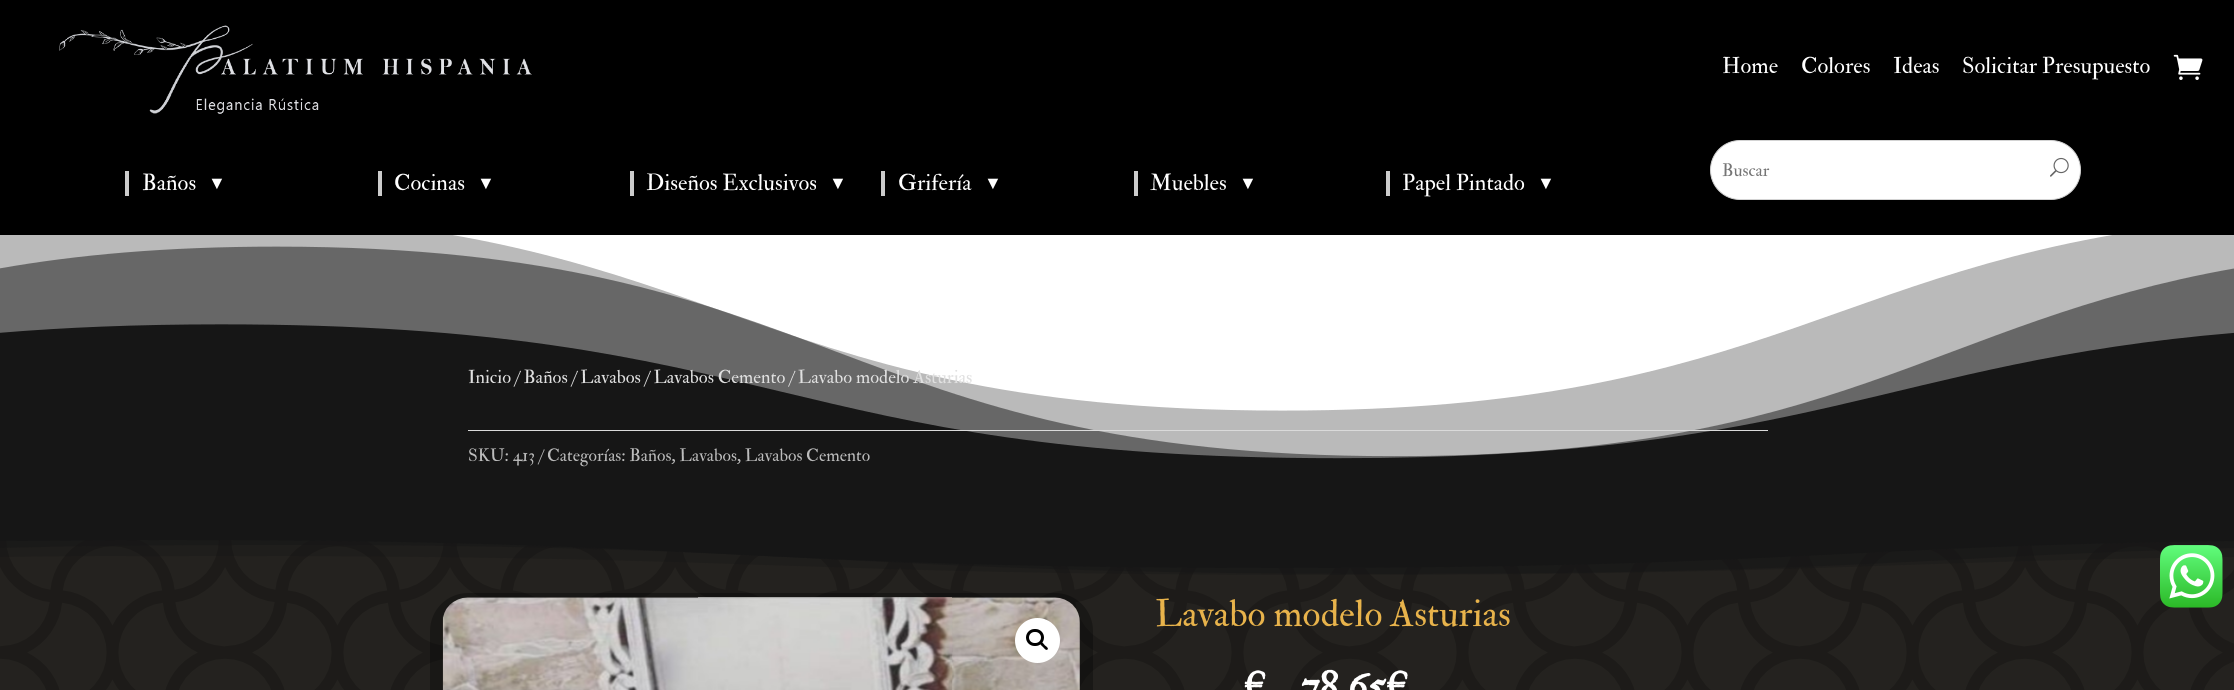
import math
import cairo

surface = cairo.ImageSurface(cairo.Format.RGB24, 2234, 690)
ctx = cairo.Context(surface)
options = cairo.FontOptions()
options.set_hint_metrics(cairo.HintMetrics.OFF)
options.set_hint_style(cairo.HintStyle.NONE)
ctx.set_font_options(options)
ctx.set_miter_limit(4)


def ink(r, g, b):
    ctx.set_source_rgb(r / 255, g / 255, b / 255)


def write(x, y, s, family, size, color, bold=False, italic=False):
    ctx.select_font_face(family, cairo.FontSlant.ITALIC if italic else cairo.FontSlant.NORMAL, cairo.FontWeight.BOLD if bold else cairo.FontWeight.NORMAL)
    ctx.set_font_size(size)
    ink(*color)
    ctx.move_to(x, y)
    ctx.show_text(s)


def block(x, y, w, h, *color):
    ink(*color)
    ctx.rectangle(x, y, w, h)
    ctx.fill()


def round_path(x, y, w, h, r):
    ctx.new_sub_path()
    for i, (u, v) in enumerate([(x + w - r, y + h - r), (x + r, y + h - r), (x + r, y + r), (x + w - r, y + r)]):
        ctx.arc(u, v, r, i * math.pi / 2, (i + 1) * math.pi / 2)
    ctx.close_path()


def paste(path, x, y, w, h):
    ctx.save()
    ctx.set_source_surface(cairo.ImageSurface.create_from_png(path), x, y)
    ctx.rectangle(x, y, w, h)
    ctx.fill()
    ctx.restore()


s1 = dict(family="IM FELL Double Pica", size=22.5, color=(255, 255, 255))
s2 = dict(family="IM FELL Double Pica", size=17.5, color=(117, 117, 117))
s3 = dict(family="Liberation Sans", size=18, color=(255, 255, 255))
s4 = dict(family="IM FELL Double Pica", size=18.4, color=(224, 224, 224))
s5 = dict(family="IM FELL Double Pica", size=17.5, color=(188, 188, 188))
s6 = dict(family="IM FELL Double Pica", size=37.5, color=(232, 179, 75))
s7 = dict(family="IM FELL Double Pica", size=40, color=(255, 255, 255), bold=True)

ink(255, 255, 255)
ctx.paint()
block(0, 0, 2234, 235, 0, 0, 0)
paste("pic1.png", 59, 25, 473, 89)
write(1722, 73, "Home", **s1)
write(1801, 73, "Colores", **s1)
write(1893, 73, "Ideas", **s1)
write(1962, 73, "Solicitar Presupuesto", **s1)
paste("pic2.png", 2173, 54, 30, 26)
round_path(1710.5, 140.5, 370, 59, 29.5)
ctx.fill_preserve()
ink(211, 211, 211)
ctx.set_line_width(1)
ctx.stroke()
write(1722, 176, "Buscar", **s2)
paste("pic3.png", 2050, 157, 19, 20)
block(125, 171, 4, 25, 204, 204, 204)
write(142, 190, "Baños", **s1)
write(208, 189, "▼", **s3)
block(378, 171, 4, 25, 204, 204, 204)
write(394, 190, "Cocinas", **s1)
write(477, 189, "▼", **s3)
block(630, 171, 4, 25, 204, 204, 204)
write(646, 190, "Diseños Exclusivos", **s1)
write(829, 189, "▼", **s3)
block(881, 171, 4, 25, 204, 204, 204)
write(898, 190, "Grifería", **s1)
write(984, 189, "▼", **s3)
block(1134, 171, 4, 25, 204, 204, 204)
write(1150, 190, "Muebles", **s1)
write(1239, 189, "▼", **s3)
block(1386, 171, 4, 25, 204, 204, 204)
write(1402, 190, "Papel Pintado", **s1)
write(1537, 189, "▼", **s3)
paste("pic4.png", 0, 235, 2234, 305)
write(468, 383, "Inicio / Baños / Lavabos / Lavabos Cemento / Lavabo modelo Asturias", **s4)
block(468, 430, 1300, 1, 218, 218, 218)
write(468, 461, "SKU: 413 / Categorías: Baños, Lavabos, Lavabos Cemento", **s5)
block(0, 540, 2234, 150, 36, 34, 31)
paste("pic5.png", 0, 540, 2234, 150)
ctx.set_source_rgba(0.086, 0.086, 0.086, 0.3)
ctx.new_path()
ctx.move_to(0, 557)
ctx.curve_to(63, 556, 135, 556, 221, 556)
ctx.curve_to(779, 556, 779, 575, 1338, 575)
ctx.curve_to(1812, 575, 1884, 561, 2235, 557)
ctx.line_to(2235, 540)
ctx.line_to(0, 540)
ctx.close_path()
ctx.fill()
ctx.set_source_rgba(0.086, 0.086, 0.086, 0.5)
ctx.new_path()
ctx.move_to(0, 548)
ctx.curve_to(76, 546, 165, 545, 277, 545)
ctx.curve_to(835, 545, 835, 574, 1394, 574)
ctx.curve_to(1841, 574, 1931, 556, 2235, 548)
ctx.line_to(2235, 540)
ctx.line_to(0, 540)
ctx.close_path()
ctx.fill()
ink(22, 22, 22)
ctx.new_path()
ctx.move_to(0, 540)
ctx.line_to(0, 541)
ctx.line_to(165, 540)
ctx.curve_to(724, 540, 724, 568, 1282, 568)
ctx.curve_to(1780, 568, 1834, 546, 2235, 541)
ctx.line_to(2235, 540)
ctx.close_path()
ctx.fill()
ctx.set_source_rgba(0, 0, 0, 0.3)
ctx.set_fill_rule(cairo.FillRule.EVEN_ODD)
ctx.new_path()
ctx.move_to(468, 593)
ctx.curve_to(447, 593, 430, 610, 430, 631)
ctx.line_to(430, 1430)
ctx.curve_to(430, 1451, 447, 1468, 468, 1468)
ctx.line_to(1055, 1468)
ctx.curve_to(1076, 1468, 1093, 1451, 1093, 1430)
ctx.line_to(1093, 631)
ctx.curve_to(1093, 610, 1076, 593, 1055, 593)
ctx.close_path()
ctx.move_to(468, 598)
ctx.curve_to(454, 598, 442, 609, 442, 622)
ctx.line_to(442, 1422)
ctx.curve_to(442, 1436, 454, 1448, 468, 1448)
ctx.line_to(1055, 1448)
ctx.curve_to(1069, 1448, 1080, 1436, 1080, 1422)
ctx.line_to(1080, 622)
ctx.curve_to(1080, 609, 1069, 598, 1055, 598)
ctx.close_path()
ctx.fill()
paste("pic6.png", 443, 597, 637, 93)
ink(255, 255, 255)
ctx.arc(1037.5, 640.5, 22.5, 0, 2 * math.pi)
ctx.fill()
round_path(1027.5, 630.5, 15, 14, 7)
ink(0, 0, 0)
ctx.set_line_width(3)
ctx.stroke()
ctx.set_fill_rule(cairo.FillRule.WINDING)
ctx.new_path()
ctx.move_to(1040.5, 642.5)
ctx.curve_to(1042, 641, 1044, 644.5, 1045, 645.5)
ctx.curve_to(1046, 646, 1049, 648.5, 1047.5, 649.5)
ctx.curve_to(1046, 651, 1044, 648, 1043, 647)
ctx.curve_to(1042.5, 646.5, 1039, 644, 1040.5, 642.5)
ctx.close_path()
ctx.fill()
write(1155, 626, "Lavabo modelo Asturias", **s6)
write(1243, 699, "€", **s7)
write(1301, 699, "78,65€", **s7)
paste("pic7.png", 2160, 545, 63, 63)
surface.write_to_png("screenshot.png")
